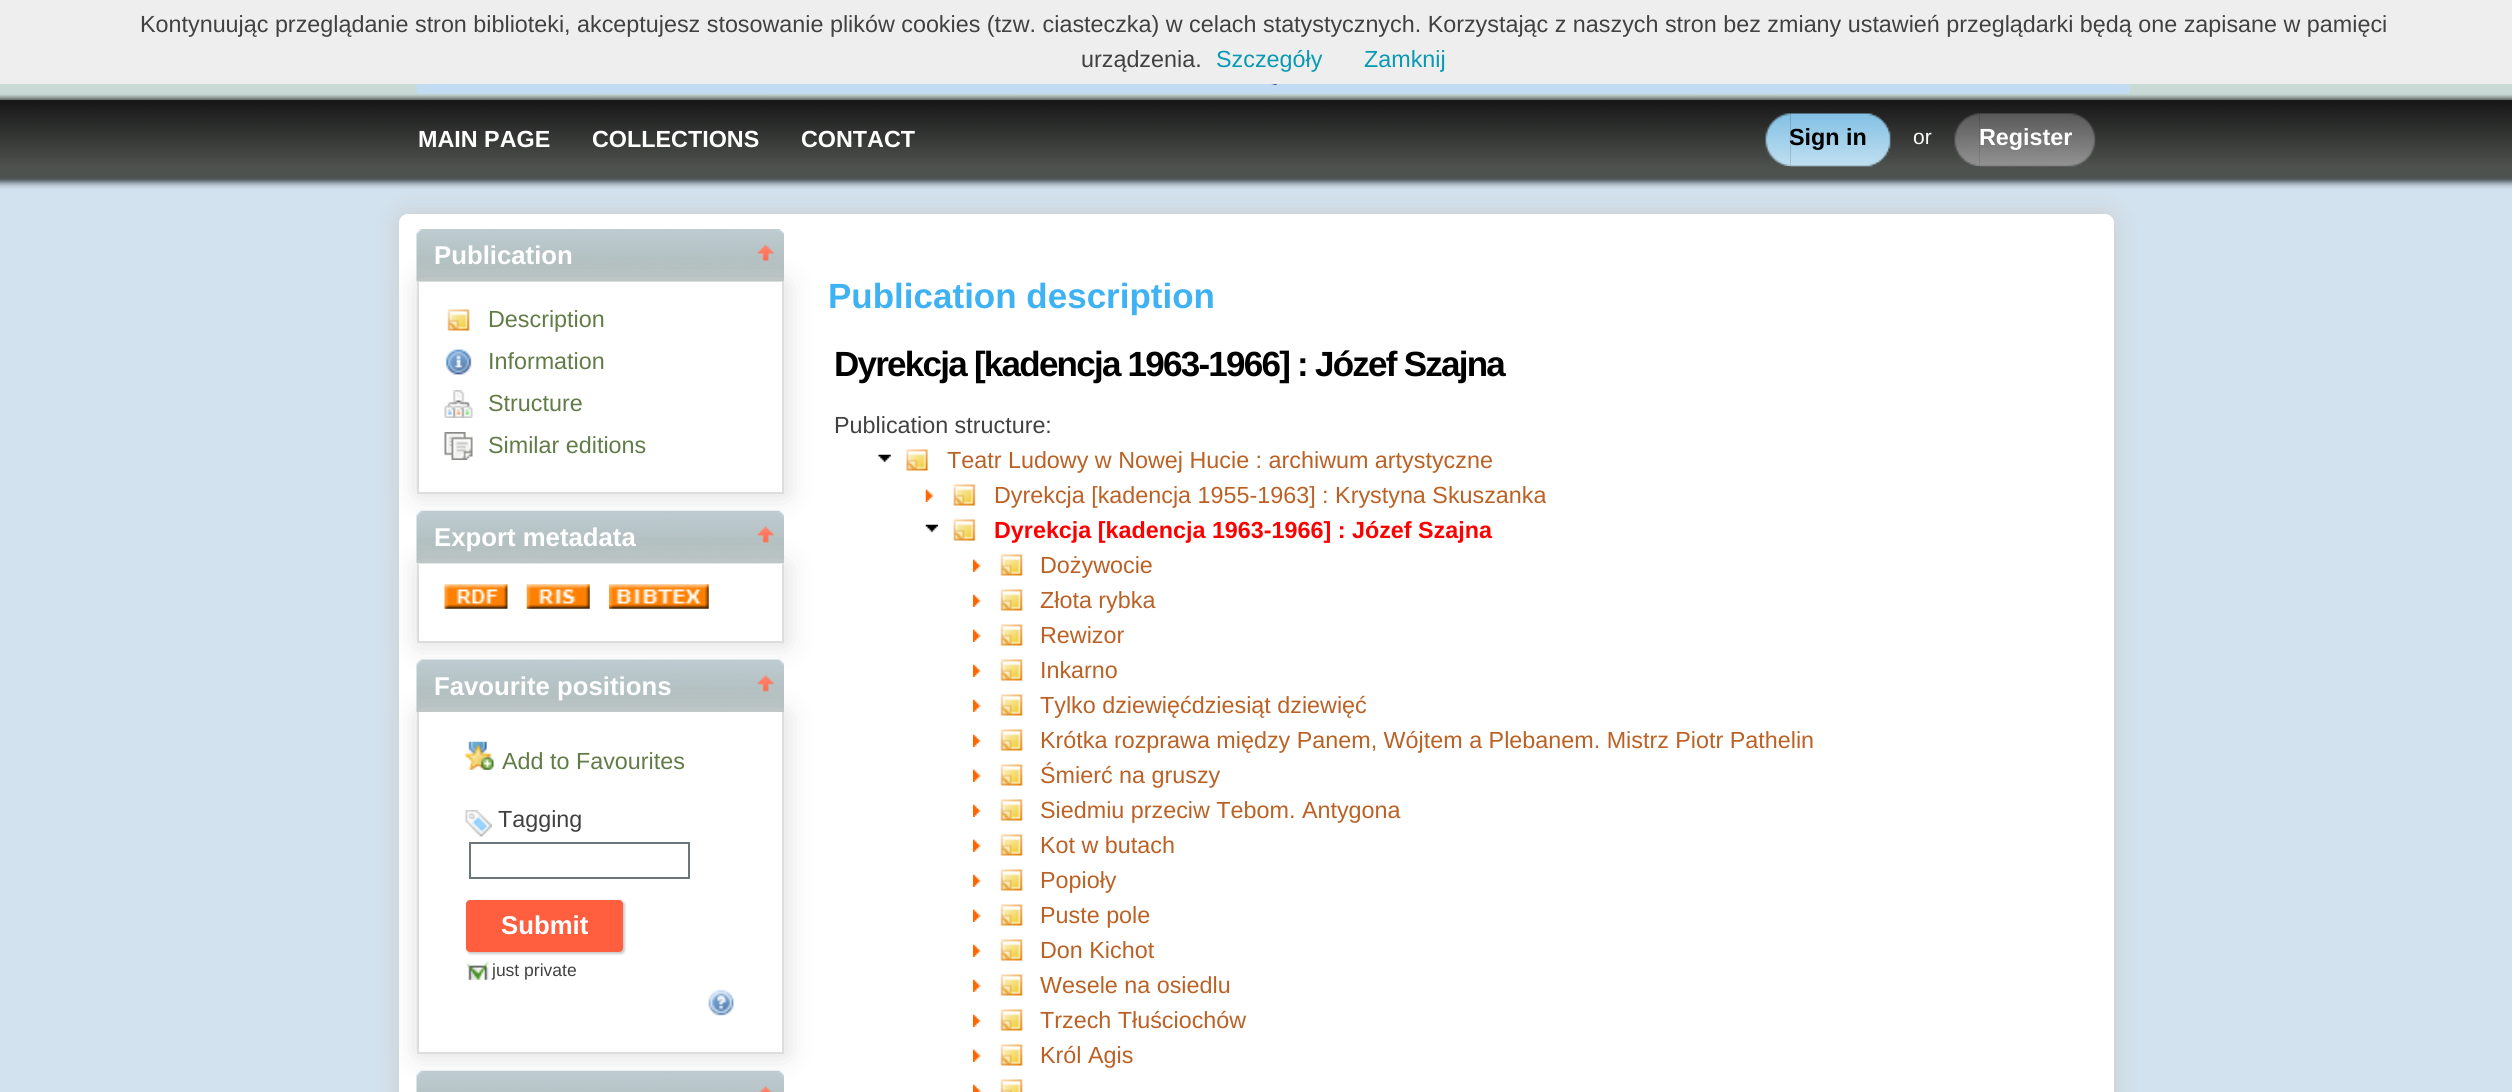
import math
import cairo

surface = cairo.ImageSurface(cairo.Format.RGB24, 2512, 1092)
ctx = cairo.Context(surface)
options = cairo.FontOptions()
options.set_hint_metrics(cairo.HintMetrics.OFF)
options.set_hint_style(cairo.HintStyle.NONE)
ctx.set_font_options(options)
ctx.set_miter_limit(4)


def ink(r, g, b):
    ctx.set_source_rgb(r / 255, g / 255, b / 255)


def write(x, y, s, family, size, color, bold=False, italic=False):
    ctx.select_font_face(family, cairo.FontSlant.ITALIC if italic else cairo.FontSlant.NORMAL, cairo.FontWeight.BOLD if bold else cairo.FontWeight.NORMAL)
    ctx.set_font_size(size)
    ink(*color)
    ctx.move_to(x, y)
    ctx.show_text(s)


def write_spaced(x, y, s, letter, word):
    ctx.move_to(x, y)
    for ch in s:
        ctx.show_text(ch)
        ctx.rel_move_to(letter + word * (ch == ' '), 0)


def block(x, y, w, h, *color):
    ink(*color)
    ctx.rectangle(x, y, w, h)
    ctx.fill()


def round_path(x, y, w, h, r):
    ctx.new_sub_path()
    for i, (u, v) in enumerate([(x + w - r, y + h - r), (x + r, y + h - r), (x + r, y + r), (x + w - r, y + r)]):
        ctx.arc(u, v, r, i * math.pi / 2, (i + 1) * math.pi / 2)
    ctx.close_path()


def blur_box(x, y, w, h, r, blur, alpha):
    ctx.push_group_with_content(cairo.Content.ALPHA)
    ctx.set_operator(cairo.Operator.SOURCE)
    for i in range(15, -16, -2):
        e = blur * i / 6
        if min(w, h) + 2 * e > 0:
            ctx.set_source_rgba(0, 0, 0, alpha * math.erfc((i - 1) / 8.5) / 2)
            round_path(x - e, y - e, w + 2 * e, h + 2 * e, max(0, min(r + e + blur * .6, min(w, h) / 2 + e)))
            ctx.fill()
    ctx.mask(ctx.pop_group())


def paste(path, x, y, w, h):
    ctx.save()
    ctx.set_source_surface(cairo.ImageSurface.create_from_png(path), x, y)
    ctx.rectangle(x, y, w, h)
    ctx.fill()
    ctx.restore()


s1 = dict(family="Liberation Sans", size=23.33, color=(65, 65, 65))
s2 = dict(family="Liberation Sans", size=23.33, color=(9, 153, 179))
s3 = dict(family="Liberation Sans", size=23.33, color=(255, 255, 255), bold=True)
s4 = dict(family="Liberation Sans", size=23.33, color=(0, 0, 0), bold=True)
s5 = dict(family="Liberation Sans", size=21, color=(255, 255, 255))
s6 = dict(family="Liberation Sans", size=25.75, color=(255, 255, 255), bold=True)
s7 = dict(family="Liberation Sans", size=23.33, color=(97, 124, 71))
s8 = dict(family="Liberation Sans", size=17.5, color=(65, 65, 65))
s9 = dict(family="Liberation Sans", size=35, color=(63, 178, 244), bold=True)
s10 = dict(family="Liberation Sans", size=23.33, color=(187, 97, 37))
s11 = dict(family="Liberation Sans", size=23.33, color=(255, 0, 0), bold=True)

ink(210, 226, 239)
ctx.paint()
block(0, 0, 2512, 84, 238, 238, 238)
write(140, 32, "Kontynuując przeglądanie stron biblioteki, akceptujesz stosowanie plików cookies (tzw. ciasteczka) w celach statystycznych. Korzystając z naszych stron bez zmiany ustawień przeglądarki będą one zapisane w pamięci", **s1)
write(1081, 67, "urządzenia.", **s1)
write(1216, 67, "Szczegóły", **s2)
write(1364, 67, "Zamknij", **s2)
paste("pic1.png", 0, 84, 2512, 16)
paste("pic2.png", 416, 84, 1714, 11)
ink(204, 204, 204)
blur_box(399, 214, 1715, 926, 9, 13, 1)
paste("pic3.png", 0, 99, 2512, 90)
write(418, 147, "MAIN PAGE", **s3)
write(592, 147, "COLLECTIONS", **s3)
write(801, 147, "CONTACT", **s3)
paste("pic4.png", 1790, 113, 101, 54)
paste("pic5.png", 1765, 113, 26, 53)
write(1789, 145, "Sign in", **s4)
write(1913, 144, "or", **s5)
paste("pic6.png", 1979, 113, 117, 54)
paste("pic7.png", 1954, 113, 26, 53)
write(1979, 145, "Register", **s3)
round_path(399, 214, 1715, 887, 9)
ctx.fill()
paste("pic8.png", 416, 229, 368, 53)
ctx.save()
ctx.set_fill_rule(cairo.FillRule.EVEN_ODD)
ctx.new_path()
ctx.move_to(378, 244)
ctx.line_to(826, 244)
ctx.line_to(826, 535)
ctx.line_to(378, 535)
ctx.close_path()
ctx.move_to(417, 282)
ctx.line_to(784, 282)
ctx.line_to(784, 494)
ctx.line_to(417, 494)
ctx.close_path()
ctx.clip()
ink(221, 221, 221)
blur_box(418, 284, 368, 211, 0, 13, 1)
ctx.restore()
write(434, 264, "Publication", **s6)
paste("pic9.png", 757, 244, 17, 17)
block(782, 282, 2, 212, 221, 221, 221)
block(417, 492, 367, 2, 221, 221, 221)
block(417, 282, 2, 212, 221, 221, 221)
paste("pic10.png", 447, 309, 23, 22)
write(488, 327, "Description", **s7)
paste("pic11.png", 445, 349, 27, 26)
write(488, 369, "Information", **s7)
paste("pic12.png", 444, 390, 29, 28)
write(488, 411, "Structure", **s7)
paste("pic13.png", 444, 432, 29, 28)
write(488, 453, "Similar editions", **s7)
paste("pic17.png", 416, 510, 368, 54)
ctx.save()
ctx.set_fill_rule(cairo.FillRule.EVEN_ODD)
ctx.new_path()
ctx.move_to(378, 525)
ctx.line_to(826, 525)
ctx.line_to(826, 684)
ctx.line_to(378, 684)
ctx.close_path()
ctx.move_to(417, 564)
ctx.line_to(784, 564)
ctx.line_to(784, 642)
ctx.line_to(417, 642)
ctx.close_path()
ctx.clip()
ink(221, 221, 221)
blur_box(418, 565, 368, 79, 0, 13, 1)
ctx.restore()
block(782, 564, 2, 78, 221, 221, 221)
block(417, 641, 367, 2, 221, 221, 221)
block(417, 564, 2, 78, 221, 221, 221)
paste("pic14.png", 444, 584, 64, 25)
paste("pic15.png", 526, 584, 64, 25)
paste("pic16.png", 609, 584, 100, 25)
write(434, 546, "Export metadata", **s6)
paste("pic18.png", 757, 526, 17, 17)
paste("pic19.png", 416, 659, 368, 53)
ctx.save()
ctx.set_fill_rule(cairo.FillRule.EVEN_ODD)
ctx.new_path()
ctx.move_to(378, 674)
ctx.line_to(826, 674)
ctx.line_to(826, 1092)
ctx.line_to(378, 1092)
ctx.close_path()
ctx.move_to(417, 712)
ctx.line_to(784, 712)
ctx.line_to(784, 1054)
ctx.line_to(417, 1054)
ctx.close_path()
ctx.clip()
ink(221, 221, 221)
blur_box(418, 714, 368, 341, 0, 13, 1)
ctx.restore()
write(434, 695, "Favourite positions", **s6)
paste("pic20.png", 757, 674, 17, 18)
block(782, 712, 2, 342, 221, 221, 221)
block(417, 1052, 367, 2, 221, 221, 221)
block(417, 712, 2, 342, 221, 221, 221)
paste("pic21.png", 465, 741, 29, 29)
write(502, 769, "Add to Favourites", **s7)
paste("pic22.png", 465, 810, 27, 27)
write(498, 827, "Tagging", **s1)
ctx.rectangle(470, 843, 219, 35)
ink(108, 117, 122)
ctx.stroke()
ink(204, 204, 204)
blur_box(467, 901, 158, 53, 4, 1, 1)
ink(255, 95, 63)
round_path(466, 900, 157, 52, 4)
ctx.fill()
write(501, 934, "Submit", **s6)
paste("pic23.png", 466, 960, 24, 20)
write(492, 976, "just private", **s8)
paste("pic24.png", 708, 989, 26, 27)
paste("pic25.png", 416, 1070, 368, 22)
paste("pic26.png", 759, 1086, 14, 6)
write(828, 308, "Publication description", **s9)
ink(0, 0, 0)
write_spaced(834, 376, "Dyrekcja [kadencja 1963-1966] : Józef Szajna", -1.75, 0)
write(834, 433, "Publication structure:", **s1)
paste("pic27.png", 878, 454, 13, 9)
paste("pic28.png", 906, 449, 22, 22)
write(947, 468, "Teatr Ludowy w Nowej Hucie : archiwum artystyczne", **s10)
paste("pic29.png", 925, 489, 9, 13)
paste("pic30.png", 953, 484, 23, 22)
write(994, 503, "Dyrekcja [kadencja 1955-1963] : Krystyna Skuszanka", **s10)
paste("pic31.png", 925, 524, 13, 9)
paste("pic30.png", 953, 519, 23, 22)
write(994, 538, "Dyrekcja [kadencja 1963-1966] : Józef Szajna", **s11)
paste("pic32.png", 973, 559, 8, 13)
paste("pic33.png", 1000, 554, 23, 22)
write(1040, 573, "Dożywocie", **s10)
paste("pic32.png", 973, 594, 8, 13)
paste("pic33.png", 1000, 589, 23, 22)
write(1040, 608, "Złota rybka", **s10)
paste("pic32.png", 973, 629, 8, 13)
paste("pic33.png", 1000, 624, 23, 22)
write(1040, 643, "Rewizor", **s10)
paste("pic32.png", 973, 664, 8, 13)
paste("pic33.png", 1000, 659, 23, 22)
write(1040, 678, "Inkarno", **s10)
paste("pic32.png", 973, 699, 8, 13)
paste("pic33.png", 1000, 694, 23, 22)
write(1040, 713, "Tylko dziewięćdziesiąt dziewięć", **s10)
paste("pic32.png", 973, 734, 8, 13)
paste("pic33.png", 1000, 729, 23, 22)
write(1040, 748, "Krótka rozprawa między Panem, Wójtem a Plebanem. Mistrz Piotr Pathelin", **s10)
paste("pic32.png", 973, 769, 8, 13)
paste("pic33.png", 1000, 764, 23, 22)
write(1040, 783, "Śmierć na gruszy", **s10)
paste("pic32.png", 973, 804, 8, 13)
paste("pic33.png", 1000, 799, 23, 22)
write(1040, 818, "Siedmiu przeciw Tebom. Antygona", **s10)
paste("pic32.png", 973, 839, 8, 13)
paste("pic33.png", 1000, 834, 23, 22)
write(1040, 853, "Kot w butach", **s10)
paste("pic32.png", 973, 874, 8, 13)
paste("pic33.png", 1000, 869, 23, 22)
write(1040, 888, "Popioły", **s10)
paste("pic32.png", 973, 909, 8, 13)
paste("pic33.png", 1000, 904, 23, 22)
write(1040, 923, "Puste pole", **s10)
paste("pic32.png", 973, 944, 8, 13)
paste("pic33.png", 1000, 939, 23, 22)
write(1040, 958, "Don Kichot", **s10)
paste("pic32.png", 973, 979, 8, 13)
paste("pic33.png", 1000, 974, 23, 22)
write(1040, 993, "Wesele na osiedlu", **s10)
paste("pic32.png", 973, 1014, 8, 13)
paste("pic33.png", 1000, 1009, 23, 22)
write(1040, 1028, "Trzech Tłuściochów", **s10)
paste("pic32.png", 973, 1049, 8, 13)
paste("pic33.png", 1000, 1044, 23, 22)
write(1040, 1063, "Król Agis", **s10)
paste("pic34.png", 973, 1084, 8, 8)
paste("pic35.png", 1000, 1079, 23, 13)
surface.write_to_png("screenshot.png")
